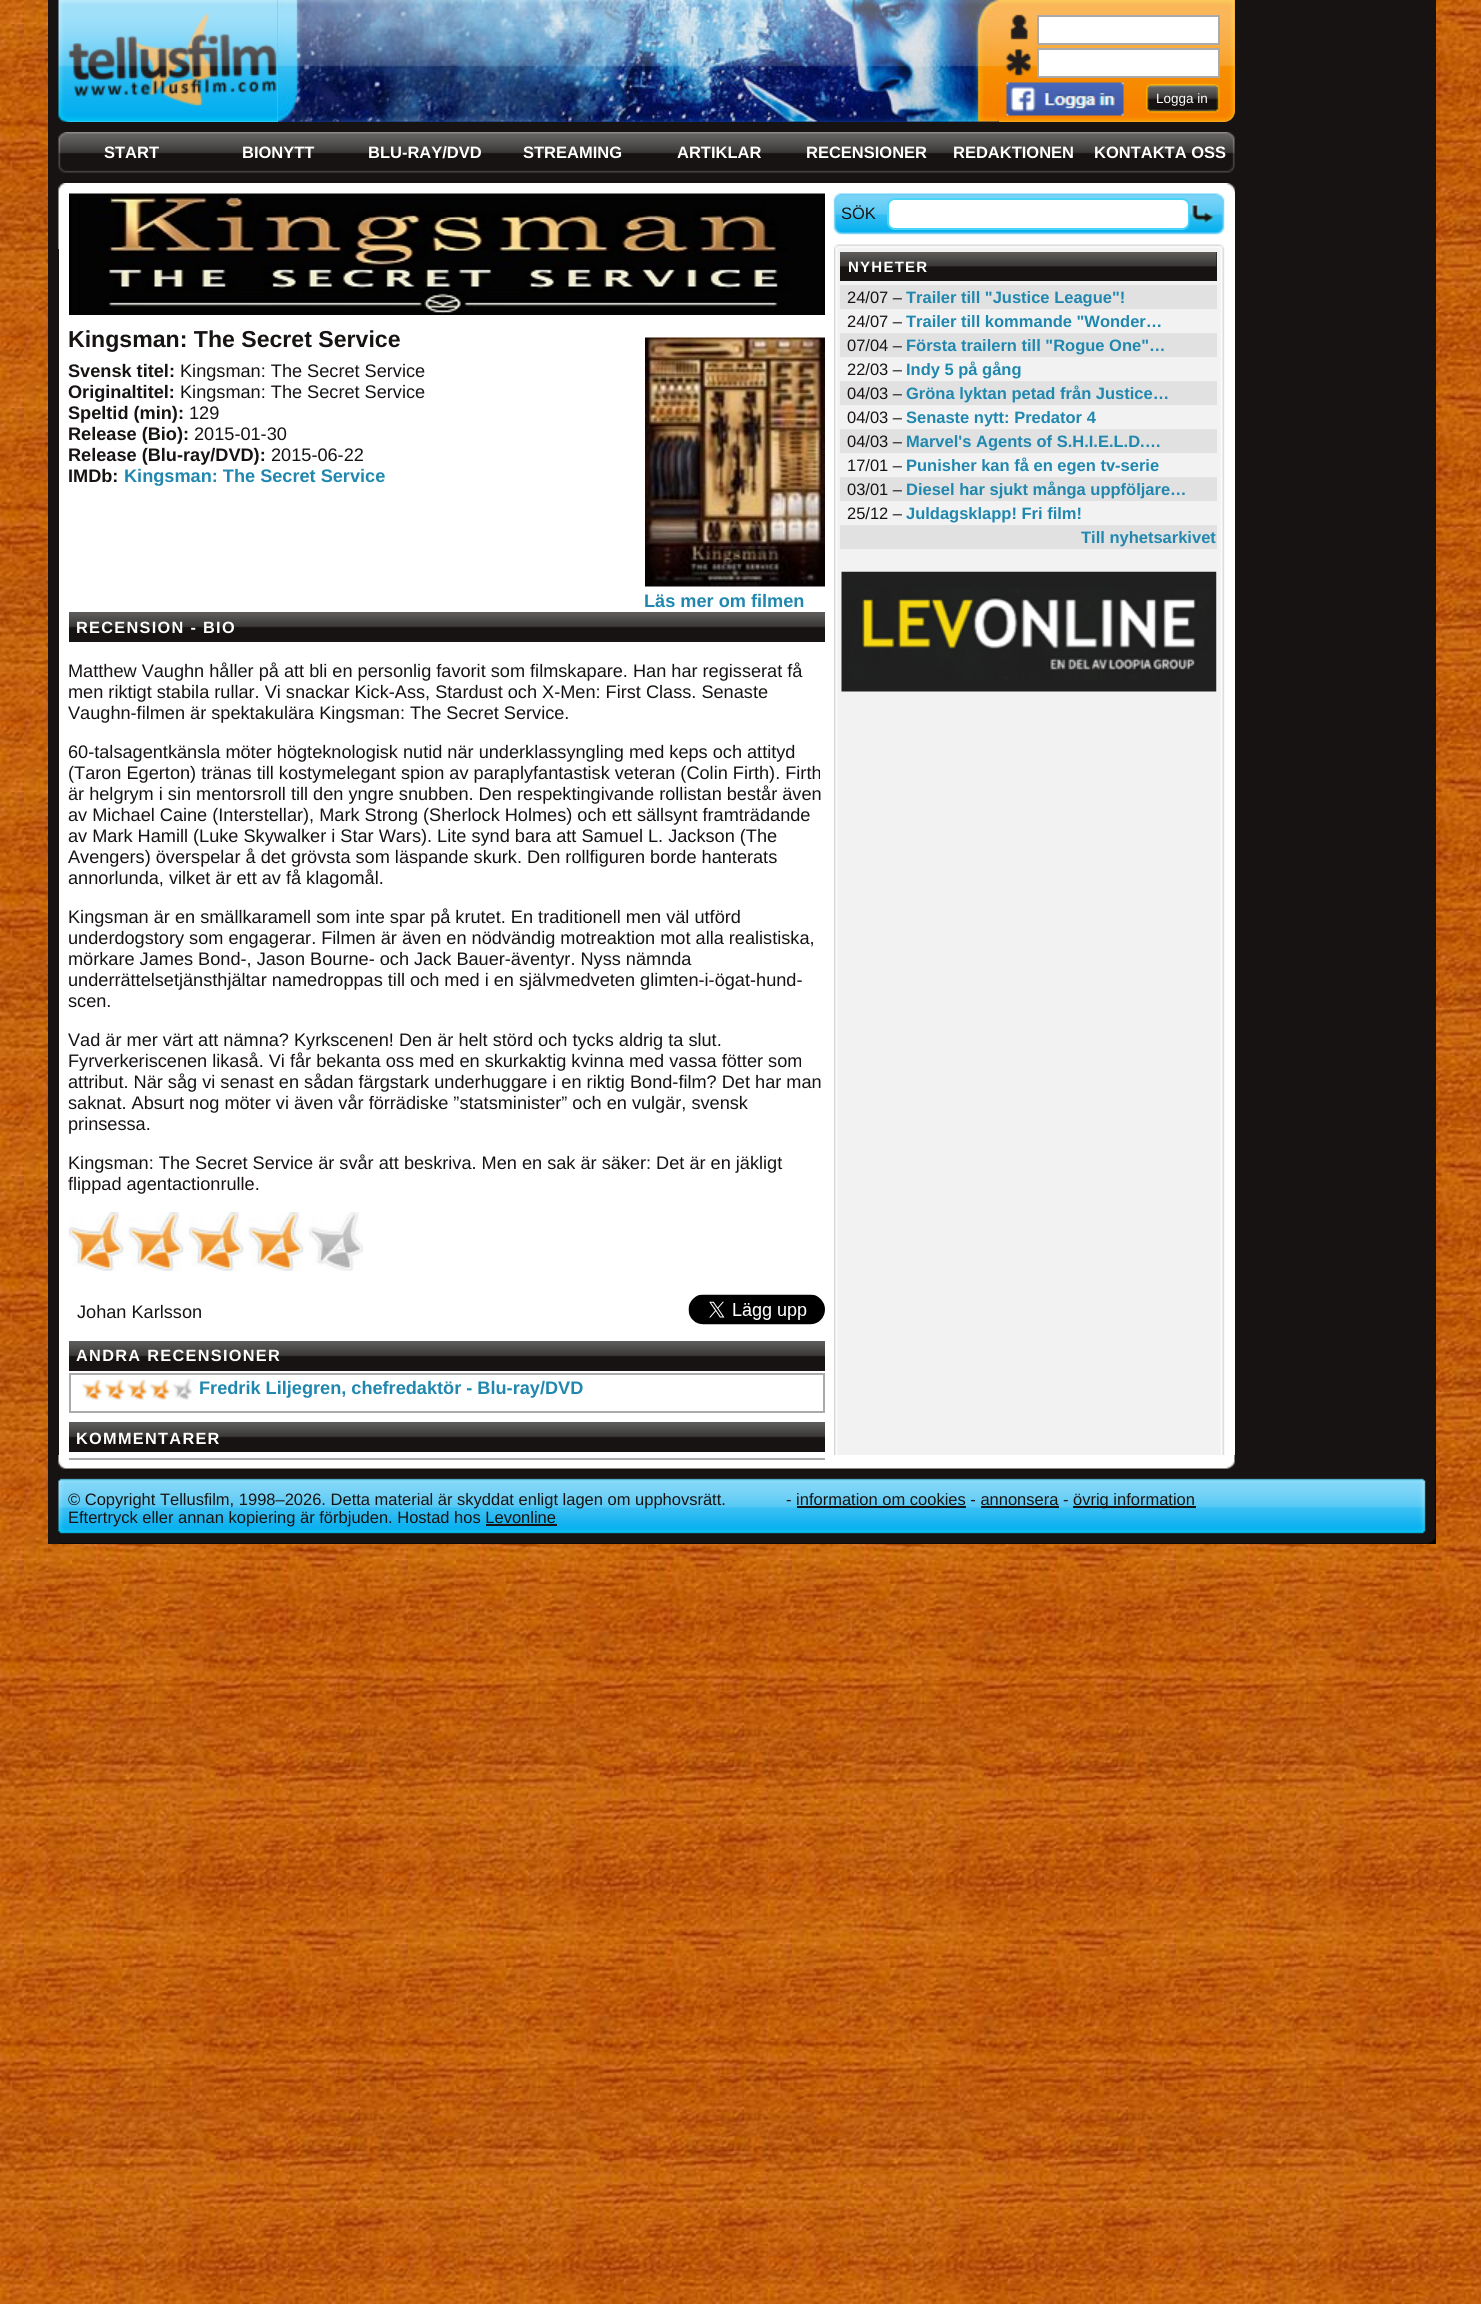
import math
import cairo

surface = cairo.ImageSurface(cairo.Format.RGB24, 1481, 2304)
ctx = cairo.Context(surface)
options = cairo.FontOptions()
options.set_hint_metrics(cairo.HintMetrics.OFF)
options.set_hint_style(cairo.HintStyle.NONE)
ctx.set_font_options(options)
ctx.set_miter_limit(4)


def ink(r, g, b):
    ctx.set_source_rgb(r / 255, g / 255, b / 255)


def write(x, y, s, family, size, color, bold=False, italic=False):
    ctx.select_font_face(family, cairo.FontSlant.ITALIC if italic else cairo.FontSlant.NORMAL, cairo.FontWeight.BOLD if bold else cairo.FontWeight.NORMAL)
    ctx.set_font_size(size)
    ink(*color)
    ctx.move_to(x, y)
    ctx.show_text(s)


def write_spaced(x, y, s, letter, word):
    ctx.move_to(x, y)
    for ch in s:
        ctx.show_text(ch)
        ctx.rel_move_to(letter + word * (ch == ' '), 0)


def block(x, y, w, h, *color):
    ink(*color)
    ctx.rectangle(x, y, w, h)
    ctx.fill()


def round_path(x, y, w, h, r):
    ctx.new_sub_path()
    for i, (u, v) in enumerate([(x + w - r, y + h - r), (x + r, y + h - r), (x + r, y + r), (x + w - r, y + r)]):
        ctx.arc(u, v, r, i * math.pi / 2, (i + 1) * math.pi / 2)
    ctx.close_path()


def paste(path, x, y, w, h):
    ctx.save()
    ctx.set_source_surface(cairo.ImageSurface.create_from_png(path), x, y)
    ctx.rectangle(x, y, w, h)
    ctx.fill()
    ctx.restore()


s1 = dict(family="Liberation Sans", size=13.5, color=(255, 255, 255))
s2 = dict(family="Liberation Sans", size=16.5, color=(255, 255, 255), bold=True)
s3 = dict(family="Liberation Sans", size=23.1, color=(22, 19, 18), bold=True)
s4 = dict(family="Liberation Sans", size=18.15, color=(22, 19, 18), bold=True)
s5 = dict(family="Liberation Sans", size=18.15, color=(22, 19, 18))
s6 = dict(family="Liberation Sans", size=18.15, color=(32, 135, 174), bold=True)
s7 = dict(family="Liberation Sans", size=16.5, color=(22, 19, 18))
s8 = dict(family="Liberation Sans", size=16.5, color=(32, 135, 174), bold=True)

ink(255, 255, 255)
ctx.paint()
paste("pic1.png", 0, 0, 1481, 2304)
block(48, 0, 1388, 1544, 22, 19, 18)
ink(86, 200, 245)
ctx.new_path()
ctx.move_to(59, 0)
ctx.line_to(278, 0)
ctx.line_to(278, 122)
ctx.line_to(70, 122)
ctx.curve_to(64, 122, 59, 117, 59, 111)
ctx.close_path()
ctx.fill()
paste("pic2.png", 58, 0, 220, 122)
block(278, 121, 721, 1, 21, 51, 109)
paste("pic3.png", 278, 0, 721, 122)
ink(249, 167, 55)
ctx.new_path()
ctx.move_to(999, 0)
ctx.line_to(1235, 0)
ctx.line_to(1235, 111)
ctx.curve_to(1235, 117, 1230, 122, 1224, 122)
ctx.line_to(999, 122)
ctx.close_path()
ctx.fill()
paste("pic4.png", 999, 0, 236, 122)
ink(255, 255, 255)
ctx.rectangle(1038, 16, 181, 28)
ctx.fill_preserve()
ink(170, 170, 170)
ctx.stroke()
ink(255, 255, 255)
ctx.rectangle(1038, 49, 181, 28)
ctx.fill_preserve()
ink(170, 170, 170)
ctx.stroke()
paste("pic5.png", 1006, 82, 118, 34)
paste("pic6.png", 1146, 84, 74, 29)
write(1156, 103, "Logga in", **s1)
paste("pic7.png", 58, 132, 1177, 41)
write(104, 158, "START", **s2)
write(242, 158, "BIONYTT", **s2)
write(368, 158, "BLU-RAY/DVD", **s2)
write(523, 158, "STREAMING", **s2)
write(677, 158, "ARTIKLAR", **s2)
write(806, 158, "RECENSIONER", **s2)
write(953, 158, "REDAKTIONEN", **s2)
write(1094, 158, "KONTAKTA OSS", **s2)
ctx.new_path()
ctx.move_to(70, 183)
ctx.line_to(1224, 183)
ctx.curve_to(1230, 183, 1235, 188, 1235, 194)
ctx.line_to(1235, 1460)
ctx.line_to(59, 1460)
ctx.line_to(59, 194)
ctx.curve_to(59, 188, 64, 183, 70, 183)
ctx.close_path()
ctx.fill()
paste("pic8.png", 834, 192, 401, 1263)
paste("pic16.png", 58, 183, 1177, 66)
paste("pic9.png", 69, 193, 756, 122)
write(68, 347, "Kingsman: The Secret Service", **s3)
write(68, 377, "Svensk titel:", **s4)
write(180, 377, "Kingsman: The Secret Service", **s5)
write(68, 398, "Originaltitel:", **s4)
write(180, 398, "Kingsman: The Secret Service", **s5)
write(68, 419, "Speltid (min):", **s4)
write(189, 419, "129", **s5)
write(68, 440, "Release (Bio):", **s4)
write(194, 440, "2015-01-30", **s5)
write(68, 461, "Release (Blu-ray/DVD):", **s4)
write(271, 461, "2015-06-22", **s5)
write(68, 482, "IMDb:", **s4)
write(124, 482, "Kingsman: The Secret Service", **s6)
paste("pic10.png", 645, 337, 180, 250)
write(644, 607, "Läs mer om filmen", **s6)
block(69, 626, 756, 16, 22, 19, 18)
paste("pic11.png", 69, 612, 756, 16)
ctx.set_font_size(16.3)
ink(255, 255, 255)
write_spaced(76, 633, "RECENSION - BIO", 1.3, 0)
write(68, 677, "Matthew Vaughn håller på att bli en personlig favorit som filmskapare. Han har regisserat få", **s5)
write(68, 698, "men riktigt stabila rullar. Vi snackar Kick-Ass, Stardust och X-Men: First Class. Senaste", **s5)
write(68, 719, "Vaughn-filmen är spektakulära Kingsman: The Secret Service.", **s5)
write(68, 758, "60-talsagentkänsla möter högteknologisk nutid när underklassyngling med keps och attityd", **s5)
write(68, 779, "(Taron Egerton) tränas till kostymelegant spion av paraplyfantastisk veteran (Colin Firth). Firth", **s5)
write(68, 800, "är helgrym i sin mentorsroll till den yngre snubben. Den respektingivande rollistan består även", **s5)
write(68, 821, "av Michael Caine (Interstellar), Mark Strong (Sherlock Holmes) och ett sällsynt framträdande", **s5)
write(68, 842, "av Mark Hamill (Luke Skywalker i Star Wars). Lite synd bara att Samuel L. Jackson (The", **s5)
write(68, 863, "Avengers) överspelar å det grövsta som läspande skurk. Den rollfiguren borde hanterats", **s5)
write(68, 884, "annorlunda, vilket är ett av få klagomål.", **s5)
write(68, 923, "Kingsman är en smällkaramell som inte spar på krutet. En traditionell men väl utförd", **s5)
write(68, 944, "underdogstory som engagerar. Filmen är även en nödvändig motreaktion mot alla realistiska,", **s5)
write(68, 965, "mörkare James Bond-, Jason Bourne- och Jack Bauer-äventyr. Nyss nämnda", **s5)
write(68, 986, "underrättelsetjänsthjältar namedroppas till och med i en självmedveten glimten-i-ögat-hund-", **s5)
write(68, 1007, "scen.", **s5)
write(68, 1046, "Vad är mer värt att nämna? Kyrkscenen! Den är helt störd och tycks aldrig ta slut.", **s5)
write(68, 1067, "Fyrverkeriscenen likaså. Vi får bekanta oss med en skurkaktig kvinna med vassa fötter som", **s5)
write(68, 1088, "attribut. När såg vi senast en sådan färgstark underhuggare i en riktig Bond-film? Det har man", **s5)
write(68, 1109, "saknat. Absurt nog möter vi även vår förrädiske ”statsminister” och en vulgär, svensk", **s5)
write(68, 1130, "prinsessa.", **s5)
write(68, 1169, "Kingsman: The Secret Service är svår att beskriva. Men en sak är säker: Det är en jäkligt", **s5)
write(68, 1190, "flippad agentactionrulle.", **s5)
paste("pic12.png", 69, 1212, 294, 59)
write(77, 1318, "Johan Karlsson", **s5)
paste("pic13.png", 688, 1294, 137, 31)
block(69, 1355, 756, 16, 22, 19, 18)
paste("pic14.png", 69, 1341, 756, 16)
ctx.select_font_face("Liberation Sans", cairo.FontSlant.NORMAL, cairo.FontWeight.BOLD)
ctx.set_font_size(16.3)
ink(255, 255, 255)
write_spaced(76, 1361, "ANDRA RECENSIONER", 1.3, 0)
ctx.rectangle(70, 1374, 754, 38)
ink(170, 170, 170)
ctx.stroke()
paste("pic15.png", 82, 1378, 111, 22)
write(199, 1394, "Fredrik Liljegren, chefredaktör - Blu-ray/DVD", **s6)
block(69, 1436, 756, 16, 22, 19, 18)
paste("pic14.png", 69, 1422, 756, 16)
ctx.set_font_size(16.3)
ink(255, 255, 255)
write_spaced(76, 1444, "KOMMENTARER", 1.3, 0)
block(59, 1455, 1377, 89, 0, 0, 0)
paste("pic20.png", 58, 1455, 1378, 89)
block(69, 1458, 756, 2, 170, 170, 170)
write(841, 219, "SÖK", **s7)
ink(255, 255, 255)
round_path(888, 199, 301, 30, 7)
ctx.fill_preserve()
ink(71, 214, 247)
ctx.stroke()
paste("pic17.png", 1189, 202, 26, 23)
block(840, 252, 377, 29, 22, 19, 18)
paste("pic18.png", 840, 252, 377, 15)
ctx.select_font_face("Liberation Sans", cairo.FontSlant.NORMAL, cairo.FontWeight.BOLD)
ctx.set_font_size(15)
ink(255, 255, 255)
write_spaced(848, 272, "NYHETER", 1.25, 0)
block(840, 285, 377, 264, 225, 225, 225)
write(847, 303, "24/07 –", **s7)
write(906, 303, "Trailer till \"Justice League\"!", **s8)
block(840, 309, 377, 24, 242, 242, 242)
write(847, 327, "24/07 –", **s7)
write(906, 327, "Trailer till kommande \"Wonder…", **s8)
write(847, 351, "07/04 –", **s7)
write(906, 351, "Första trailern till \"Rogue One\"…", **s8)
block(840, 357, 377, 24, 242, 242, 242)
write(847, 375, "22/03 –", **s7)
write(906, 375, "Indy 5 på gång", **s8)
write(847, 399, "04/03 –", **s7)
write(906, 399, "Gröna lyktan petad från Justice…", **s8)
block(840, 405, 377, 24, 242, 242, 242)
write(847, 423, "04/03 –", **s7)
write(906, 423, "Senaste nytt: Predator 4", **s8)
write(847, 447, "04/03 –", **s7)
write(906, 447, "Marvel's Agents of S.H.I.E.L.D.…", **s8)
block(840, 453, 377, 24, 242, 242, 242)
write(847, 471, "17/01 –", **s7)
write(906, 471, "Punisher kan få en egen tv-serie", **s8)
write(847, 495, "03/01 –", **s7)
write(906, 495, "Diesel har sjukt många uppföljare…", **s8)
block(840, 501, 377, 24, 242, 242, 242)
write(847, 519, "25/12 –", **s7)
write(906, 519, "Juldagsklapp! Fri film!", **s8)
write(1081, 543, "Till nyhetsarkivet", **s8)
paste("pic19.png", 841, 571, 376, 121)
write(68, 1505, "© Copyright Tellusfilm, 1998–2026. Detta material är skyddat enligt lagen om upphovsrätt.", **s7)
write(68, 1523, "Eftertryck eller annan kopiering är förbjuden. Hostad hos Levonline", **s7)
block(486, 1524, 71, 2, 22, 19, 18)
write(786, 1505, "- information om cookies - annonsera -", **s7)
block(797, 1506, 169, 2, 22, 19, 18)
block(1073, 1506, 123, 2, 22, 19, 18)
write(1073, 1505, "övrig information", **s7)
block(981, 1506, 78, 2, 22, 19, 18)
surface.write_to_png("screenshot.png")
